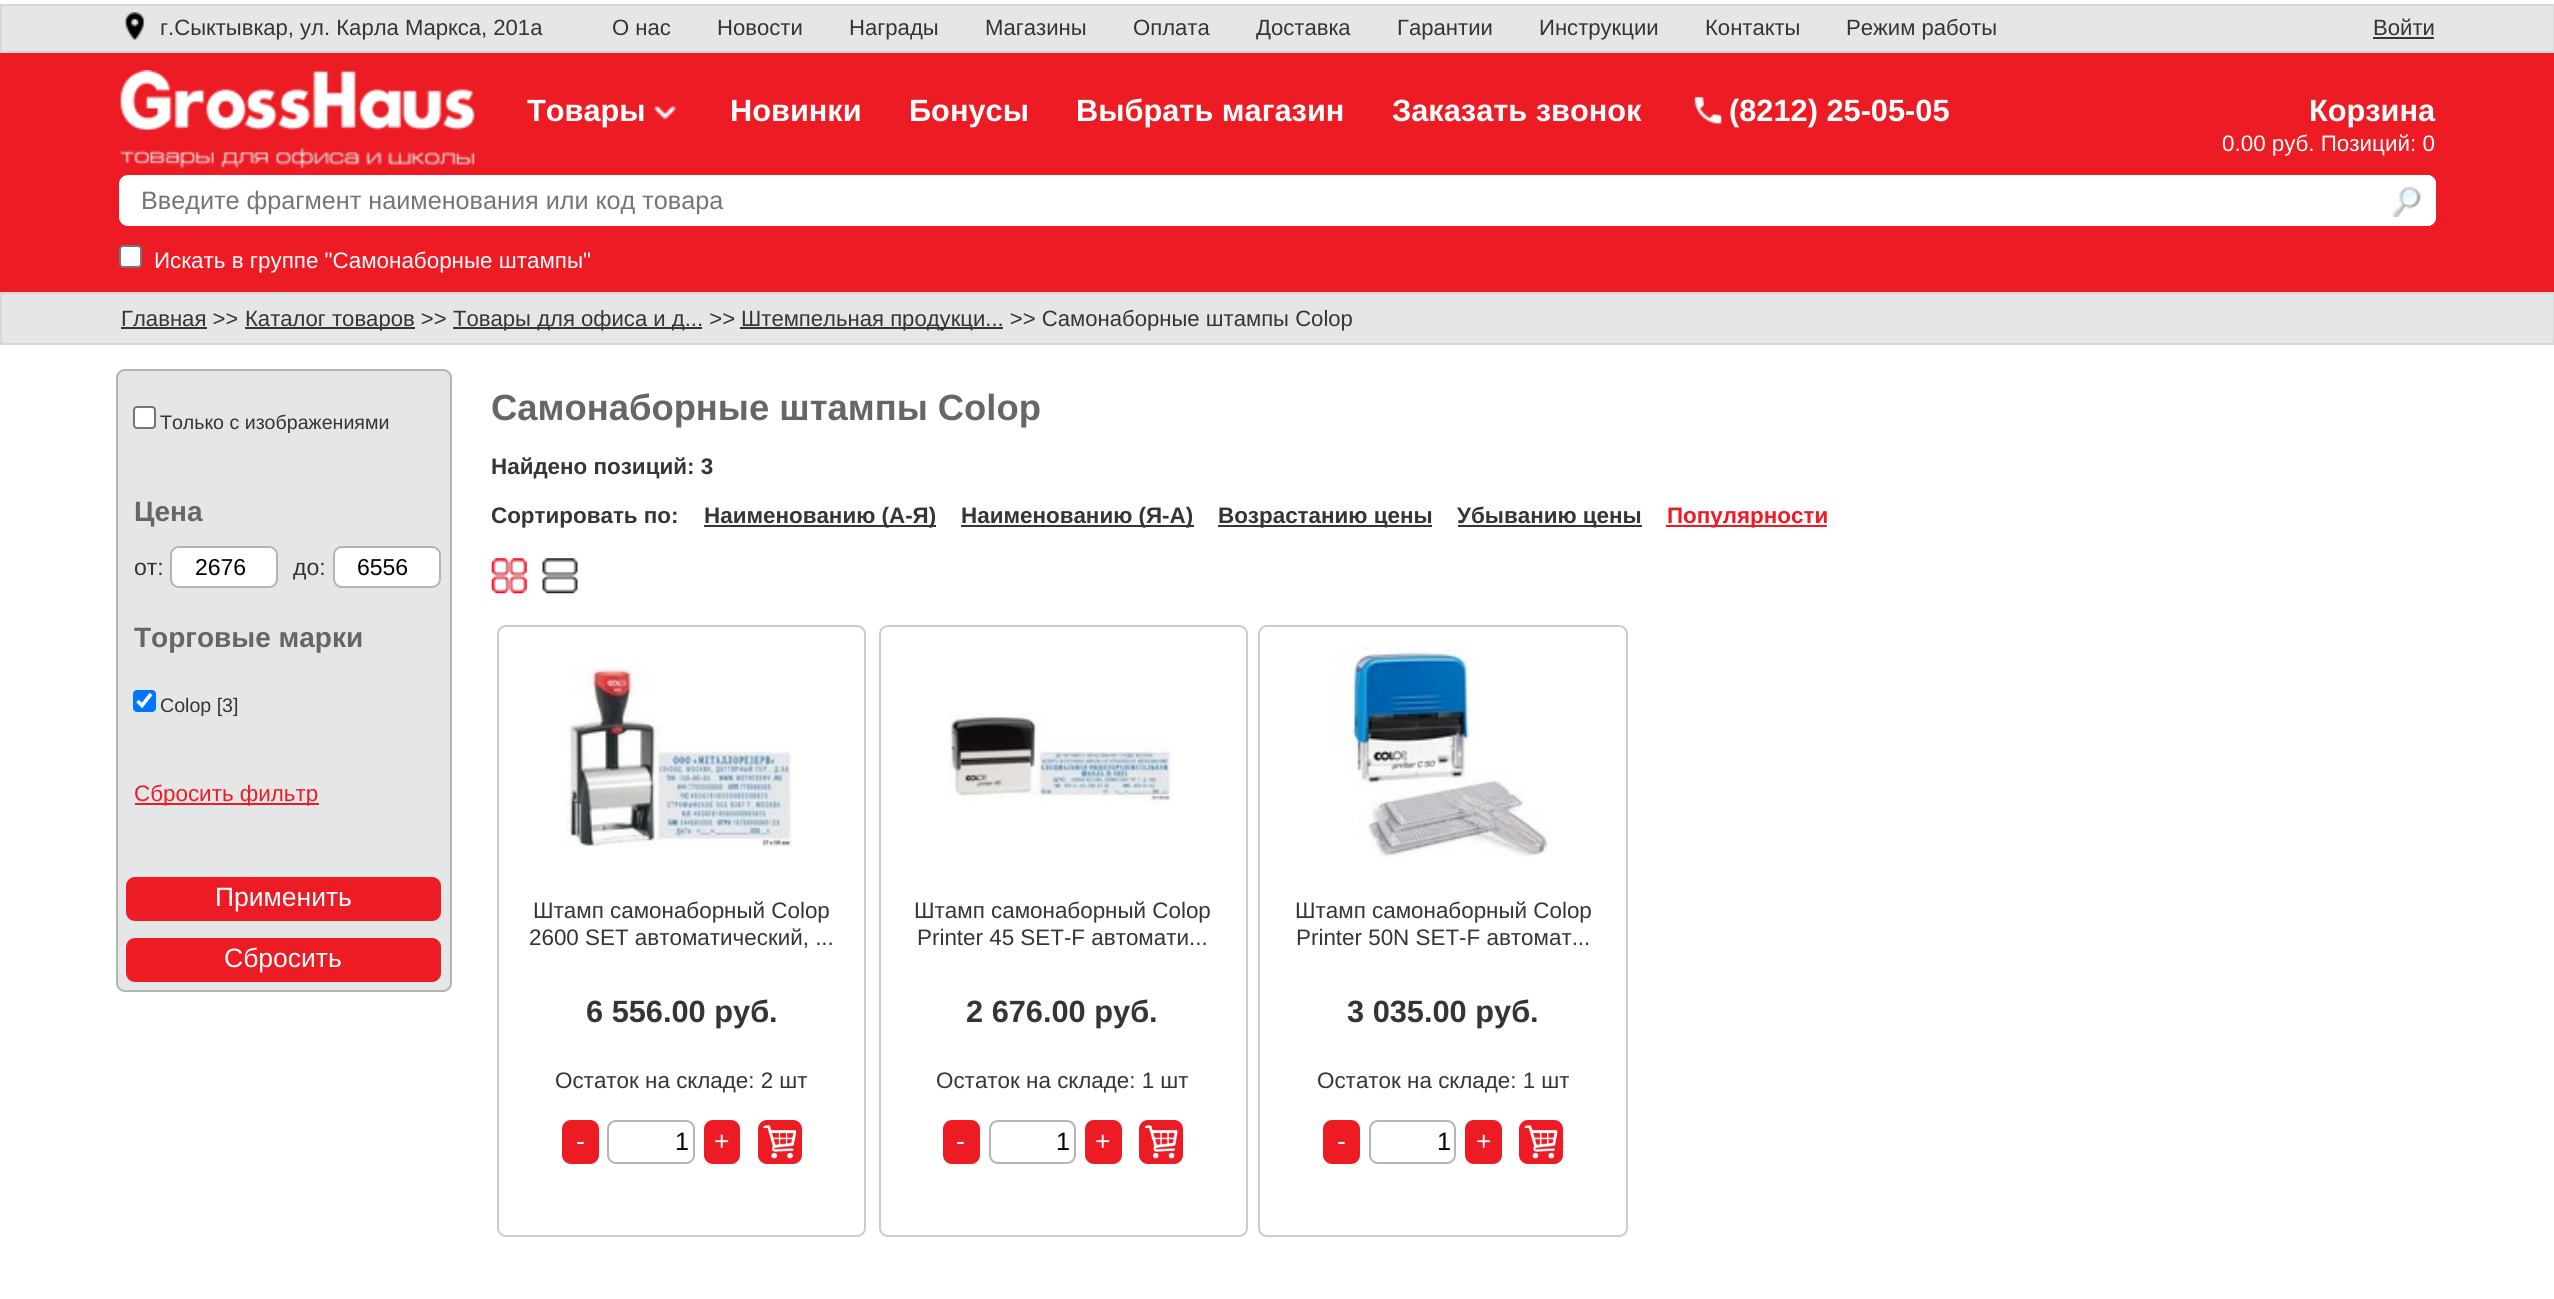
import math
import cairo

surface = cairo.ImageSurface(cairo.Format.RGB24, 2554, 1299)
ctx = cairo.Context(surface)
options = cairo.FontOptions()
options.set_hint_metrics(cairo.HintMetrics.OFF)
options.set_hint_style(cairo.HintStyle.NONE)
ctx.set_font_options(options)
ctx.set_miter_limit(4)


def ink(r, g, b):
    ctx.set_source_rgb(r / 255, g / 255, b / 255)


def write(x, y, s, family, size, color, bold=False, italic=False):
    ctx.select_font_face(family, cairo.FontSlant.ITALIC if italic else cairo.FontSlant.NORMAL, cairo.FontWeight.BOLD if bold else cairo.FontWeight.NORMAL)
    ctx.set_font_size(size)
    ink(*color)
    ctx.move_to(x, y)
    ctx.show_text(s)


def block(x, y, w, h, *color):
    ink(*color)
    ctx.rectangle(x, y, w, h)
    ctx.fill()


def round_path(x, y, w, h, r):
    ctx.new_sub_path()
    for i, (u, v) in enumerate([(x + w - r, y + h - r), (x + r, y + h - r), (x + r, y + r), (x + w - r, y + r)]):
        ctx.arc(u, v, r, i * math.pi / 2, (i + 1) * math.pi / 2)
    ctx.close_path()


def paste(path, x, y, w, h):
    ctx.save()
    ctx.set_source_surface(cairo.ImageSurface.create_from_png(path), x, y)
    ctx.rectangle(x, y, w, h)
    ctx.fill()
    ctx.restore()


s1 = dict(family="Liberation Sans", size=22.1, color=(54, 52, 52))
s2 = dict(family="Liberation Sans", size=30.75, color=(255, 255, 255), bold=True)
s3 = dict(family="Liberation Sans", size=22.4, color=(255, 255, 255))
s4 = dict(family="Liberation Sans", size=25.2, color=(117, 117, 117))
s5 = dict(family="Liberation Sans", size=19.6, color=(54, 52, 52))
s6 = dict(family="Liberation Sans", size=28, color=(102, 102, 102), bold=True)
s7 = dict(family="Liberation Sans", size=23, color=(54, 52, 52))
s8 = dict(family="Liberation Sans", size=23, color=(0, 0, 0))
s9 = dict(family="Liberation Sans", size=22.4, color=(237, 27, 36))
s10 = dict(family="Liberation Sans", size=26.5, color=(255, 255, 255))
s11 = dict(family="Liberation Sans", size=36.4, color=(102, 102, 102), bold=True)
s12 = dict(family="Liberation Sans", size=22.4, color=(54, 52, 52), bold=True)
s13 = dict(family="Liberation Sans", size=22.4, color=(237, 27, 36), bold=True)
s14 = dict(family="Liberation Sans", size=22.4, color=(54, 52, 52))
s15 = dict(family="Liberation Sans", size=30.75, color=(54, 52, 52), bold=True)
s16 = dict(family="Liberation Sans", size=25.2, color=(0, 0, 0))

ink(255, 255, 255)
ctx.paint()
ink(229, 230, 232)
ctx.rectangle(1, 5, 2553, 47)
ctx.fill_preserve()
ink(214, 215, 217)
ctx.stroke()
paste("pic1.png", 124, 12, 22, 29)
write(160, 35, "г.Сыктывкар, ул. Карла Маркса, 201а", **s1)
write(612, 35, "О нас", **s1)
write(717, 35, "Новости", **s1)
write(849, 35, "Награды", **s1)
write(985, 35, "Магазины", **s1)
write(1133, 35, "Оплата", **s1)
write(1256, 35, "Доставка", **s1)
write(1397, 35, "Гарантии", **s1)
write(1539, 35, "Инструкции", **s1)
write(1705, 35, "Контакты", **s1)
write(1846, 35, "Режим работы", **s1)
write(2373, 35, "Войти", **s1)
block(2373, 37, 61, 2, 54, 52, 52)
block(0, 53, 2554, 239, 237, 27, 36)
paste("pic2.png", 119, 70, 356, 99)
write(527, 121, "Товары", **s2)
paste("pic3.png", 654, 106, 22, 14)
write(730, 121, "Новинки", **s2)
write(909, 121, "Бонусы", **s2)
write(1076, 121, "Выбрать магазин", **s2)
write(1392, 121, "Заказать звонок", **s2)
paste("pic4.png", 1694, 96, 28, 28)
write(1729, 121, "(8212) 25-05-05", **s2)
write(2309, 121, "Корзина", **s2)
write(2222, 151, "0.00 руб. Позиций: 0", **s3)
round_path(119, 175, 2317, 51, 9)
ctx.fill()
write(141, 209, "Введите фрагмент наименования или код товара", **s4)
ink(255, 255, 255)
ctx.new_path()
ctx.move_to(2385, 175)
ctx.line_to(2427, 175)
ctx.curve_to(2432, 175, 2436, 179, 2436, 184)
ctx.line_to(2436, 217)
ctx.curve_to(2436, 222, 2432, 226, 2427, 226)
ctx.line_to(2385, 226)
ctx.close_path()
ctx.fill()
paste("pic5.png", 2392, 186, 29, 31)
ctx.new_path()
ctx.move_to(2386, 176)
ctx.line_to(2427, 176)
ctx.curve_to(2431.5, 176, 2435, 179.5, 2435, 184)
ctx.line_to(2435, 217)
ctx.curve_to(2435, 221.5, 2431.5, 225, 2427, 225)
ctx.line_to(2386, 225)
ctx.close_path()
ctx.stroke()
round_path(120, 246, 21, 21, 3)
ctx.fill_preserve()
ink(118, 118, 118)
ctx.stroke()
write(154, 268, "Искать в группе \"Самонаборные штампы\"", **s3)
ink(229, 230, 232)
ctx.rectangle(1, 293, 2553, 51)
ctx.fill_preserve()
ink(214, 215, 217)
ctx.stroke()
write(121, 326, "Главная >>", **s1)
block(121, 327, 86, 2, 54, 52, 52)
block(245, 327, 170, 2, 54, 52, 52)
write(245, 326, "Каталог товаров >>", **s1)
block(453, 327, 249, 2, 54, 52, 52)
write(453, 326, "Товары для офиса и д... >>", **s1)
block(740, 327, 263, 2, 54, 52, 52)
write(741, 326, "Штемпельная продукци... >> Самонаборные штампы Colop", **s1)
ink(229, 230, 232)
round_path(117, 370, 334, 621, 8)
ctx.fill_preserve()
ink(181, 181, 181)
ctx.stroke()
ink(255, 255, 255)
round_path(134, 407, 21, 21, 3)
ctx.fill_preserve()
ink(118, 118, 118)
ctx.stroke()
write(160, 429, "Только с изображениями", **s5)
write(134, 521, "Цена", **s6)
write(134, 575, "от:", **s7)
ink(255, 255, 255)
round_path(171, 547, 106, 40, 8)
ctx.fill_preserve()
ink(181, 181, 181)
ctx.stroke()
write(195, 575, "2676", **s8)
write(293, 575, "до:", **s7)
ink(255, 255, 255)
round_path(334, 547, 106, 40, 8)
ctx.fill_preserve()
ink(181, 181, 181)
ctx.stroke()
write(357, 575, "6556", **s8)
write(134, 647, "Торговые марки", **s6)
ink(0, 117, 255)
round_path(133, 690, 23, 22, 4)
ctx.fill()
ctx.new_path()
ctx.move_to(137.5, 701)
ctx.line_to(142, 705.5)
ctx.line_to(151, 694)
ink(255, 255, 255)
ctx.set_line_width(3.6)
ctx.stroke()
write(160, 712, "Colop [3]", **s5)
block(135, 803, 184, 2, 237, 27, 36)
write(134, 801, "Сбросить фильтр", **s9)
round_path(126, 877, 315, 44, 9)
ctx.fill()
write(215, 906, "Применить", **s10)
ink(237, 27, 36)
round_path(126, 938, 315, 44, 9)
ctx.fill()
write(224, 967, "Сбросить", **s10)
write(491, 420, "Самонаборные штампы Colop", **s11)
write(491, 474, "Найдено позиций: 3", **s12)
write(491, 523, "Сортировать по:", **s12)
block(704, 525, 232, 2, 54, 52, 52)
write(704, 523, "Наименованию (А-Я)", **s12)
block(961, 525, 233, 2, 54, 52, 52)
write(961, 523, "Наименованию (Я-А)", **s12)
block(1218, 525, 214, 2, 54, 52, 52)
write(1218, 523, "Возрастанию цены", **s12)
block(1458, 525, 184, 2, 54, 52, 52)
write(1457, 523, "Убыванию цены", **s12)
block(1666, 525, 161, 2, 237, 27, 36)
write(1667, 523, "Популярности", **s13)
paste("pic6.png", 491, 558, 36, 36)
paste("pic7.png", 542, 558, 36, 36)
round_path(498, 626, 367, 610, 8)
ink(204, 204, 204)
ctx.set_line_width(2)
ctx.stroke()
paste("pic8.png", 567, 668, 225, 179)
write(533, 918, "Штамп самонаборный Colop", **s14)
write(529, 945, "2600 SET автоматический, ...", **s14)
write(586, 1022, "6 556.00 руб.", **s15)
write(555, 1088, "Остаток на складе: 2 шт", **s14)
ink(237, 27, 36)
round_path(562, 1120, 37, 44, 9)
ctx.fill()
write(576, 1150, "-", **s10)
round_path(608, 1121, 86, 42, 8)
ink(181, 181, 181)
ctx.stroke()
write(675, 1150, "1", **s16)
ink(237, 27, 36)
round_path(704, 1120, 36, 44, 9)
ctx.fill()
write(714, 1150, "+", **s10)
ink(237, 27, 36)
round_path(758, 1120, 44, 44, 9)
ctx.fill()
paste("pic9.png", 763, 1125, 34, 34)
round_path(880, 626, 367, 610, 8)
ink(204, 204, 204)
ctx.stroke()
paste("pic10.png", 948, 712, 225, 91)
write(914, 918, "Штамп самонаборный Colop", **s14)
write(917, 945, "Printer 45 SET-F автомати...", **s14)
write(966, 1022, "2 676.00 руб.", **s15)
write(936, 1088, "Остаток на складе: 1 шт", **s14)
ink(237, 27, 36)
round_path(943, 1120, 37, 44, 9)
ctx.fill()
write(956, 1150, "-", **s10)
round_path(990, 1121, 85, 42, 8)
ink(181, 181, 181)
ctx.stroke()
write(1056, 1150, "1", **s16)
ink(237, 27, 36)
round_path(1085, 1120, 37, 44, 9)
ctx.fill()
write(1095, 1150, "+", **s10)
ink(237, 27, 36)
round_path(1139, 1120, 44, 44, 9)
ctx.fill()
paste("pic11.png", 1144, 1125, 34, 34)
round_path(1259, 626, 368, 610, 8)
ink(204, 204, 204)
ctx.stroke()
paste("pic12.png", 1330, 644, 222, 213)
write(1295, 918, "Штамп самонаборный Colop", **s14)
write(1296, 945, "Printer 50N SET-F автомат...", **s14)
write(1347, 1022, "3 035.00 руб.", **s15)
write(1317, 1088, "Остаток на складе: 1 шт", **s14)
ink(237, 27, 36)
round_path(1323, 1120, 37, 44, 9)
ctx.fill()
write(1337, 1150, "-", **s10)
round_path(1370, 1121, 85, 42, 8)
ink(181, 181, 181)
ctx.stroke()
write(1437, 1150, "1", **s16)
ink(237, 27, 36)
round_path(1465, 1120, 37, 44, 9)
ctx.fill()
write(1476, 1150, "+", **s10)
ink(237, 27, 36)
round_path(1519, 1120, 44, 44, 9)
ctx.fill()
paste("pic13.png", 1524, 1125, 34, 34)
surface.write_to_png("screenshot.png")
